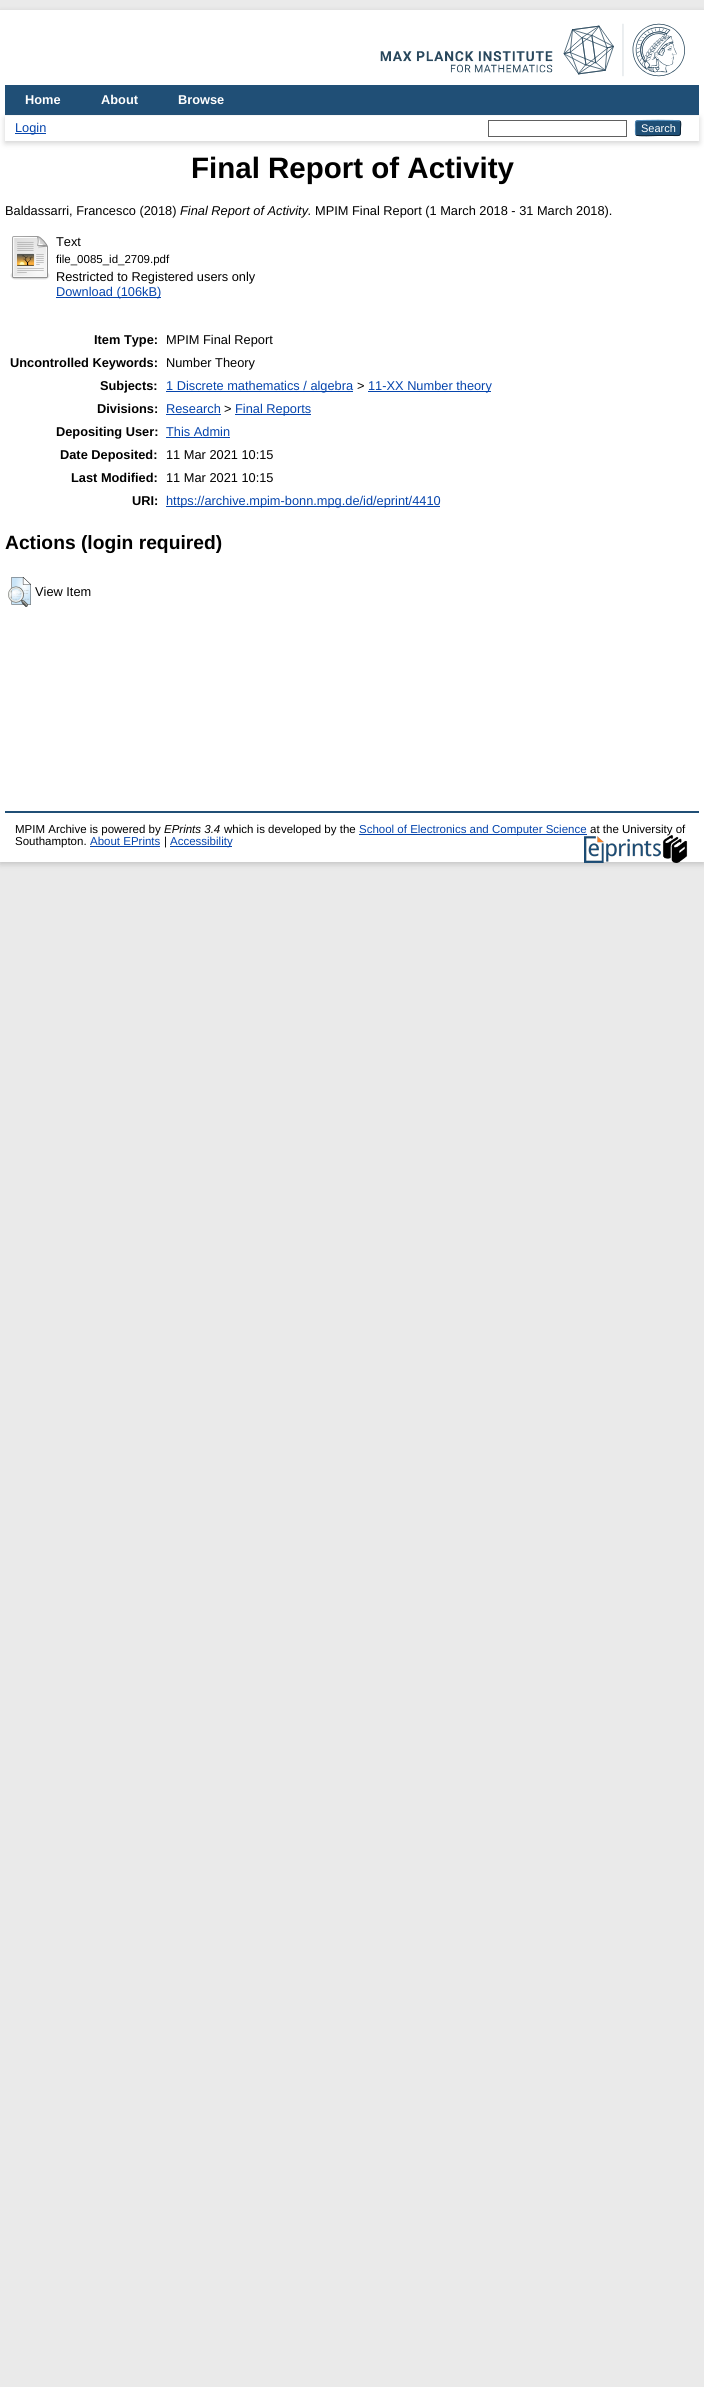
import math
import cairo

surface = cairo.ImageSurface(cairo.Format.RGB24, 704, 2387)
ctx = cairo.Context(surface)
options = cairo.FontOptions()
options.set_hint_metrics(cairo.HintMetrics.OFF)
options.set_hint_style(cairo.HintStyle.NONE)
ctx.set_font_options(options)
ctx.set_miter_limit(4)


def ink(r, g, b):
    ctx.set_source_rgb(r / 255, g / 255, b / 255)


def write(x, y, s, family, size, color, bold=False, italic=False):
    ctx.select_font_face(family, cairo.FontSlant.ITALIC if italic else cairo.FontSlant.NORMAL, cairo.FontWeight.BOLD if bold else cairo.FontWeight.NORMAL)
    ctx.set_font_size(size)
    ink(*color)
    ctx.move_to(x, y)
    ctx.show_text(s)


def block(x, y, w, h, *color):
    ink(*color)
    ctx.rectangle(x, y, w, h)
    ctx.fill()


def round_path(x, y, w, h, r):
    ctx.new_sub_path()
    for i, (u, v) in enumerate([(x + w - r, y + h - r), (x + r, y + h - r), (x + r, y + r), (x + w - r, y + r)]):
        ctx.arc(u, v, r, i * math.pi / 2, (i + 1) * math.pi / 2)
    ctx.close_path()


def blur_box(x, y, w, h, r, blur, alpha):
    ctx.push_group_with_content(cairo.Content.ALPHA)
    ctx.set_operator(cairo.Operator.SOURCE)
    for i in range(15, -16, -2):
        e = blur * i / 6
        if min(w, h) + 2 * e > 0:
            ctx.set_source_rgba(0, 0, 0, alpha * math.erfc((i - 1) / 8.5) / 2)
            round_path(x - e, y - e, w + 2 * e, h + 2 * e, max(0, min(r + e + blur * .6, min(w, h) / 2 + e)))
            ctx.fill()
    ctx.mask(ctx.pop_group())


def paste(path, x, y, w, h):
    ctx.save()
    ctx.set_source_surface(cairo.ImageSurface.create_from_png(path), x, y)
    ctx.rectangle(x, y, w, h)
    ctx.fill()
    ctx.restore()


s1 = dict(family="Liberation Sans", size=12.8, color=(255, 255, 255), bold=True)
s2 = dict(family="Liberation Sans", size=12.8, color=(6, 69, 173))
s3 = dict(family="Liberation Sans", size=11, color=(255, 255, 255))
s4 = dict(family="Liberation Sans", size=29.5, color=(0, 0, 0), bold=True)
s5 = dict(family="Liberation Sans", size=12.8, color=(0, 0, 0))
s6 = dict(family="Liberation Sans", size=12.8, color=(0, 0, 0), italic=True)
s7 = dict(family="Liberation Sans", size=11.5, color=(0, 0, 0))
s8 = dict(family="Liberation Sans", size=12.8, color=(0, 0, 0), bold=True)
s9 = dict(family="Liberation Sans", size=19.25, color=(0, 0, 0), bold=True)
s10 = dict(family="Liberation Sans", size=11.5, color=(0, 0, 0), italic=True)
s11 = dict(family="Liberation Sans", size=11.5, color=(6, 69, 173))

ink(234, 234, 234)
ctx.paint()
ink(100, 100, 100)
blur_box(0, 12, 704, 852, 0, 3, 0.3)
block(0, 10, 704, 852, 255, 255, 255)
paste("pic1.png", 380, 23, 305, 54)
block(5, 85, 694, 30, 32, 79, 118)
write(25, 104, "Home", **s1)
write(101, 104, "About", **s1)
write(178, 104, "Browse", **s1)
ink(100, 100, 100)
blur_box(5, 118, 694, 25, 0, 3, 0.3)
block(5, 116, 694, 25, 255, 255, 255)
block(15, 133, 31, 1, 6, 69, 173)
write(15, 132, "Login", **s2)
ctx.rectangle(488.5, 120.5, 138, 16)
ink(96, 96, 96)
ctx.set_line_width(1)
ctx.stroke()
ink(31, 79, 118)
round_path(635, 120, 46, 16, 3)
ctx.fill()
ctx.new_path()
ctx.move_to(636, 121)
ctx.curve_to(637.5, 120, 678.5, 120, 680, 121)
ink(91, 151, 199)
ctx.stroke()
ctx.new_path()
ctx.move_to(680, 121)
ctx.curve_to(681.5, 123, 680.5, 126, 680.5, 128)
ctx.curve_to(680.5, 137, 681, 135.5, 671.5, 135.5)
ctx.line_to(658, 135.5)
ctx.curve_to(654.5, 135.5, 638, 136.5, 636, 135)
ink(13, 33, 49)
ctx.stroke()
ctx.new_path()
ctx.move_to(636, 135)
ctx.curve_to(635, 133.5, 635.5, 129.5, 635.5, 128)
ctx.curve_to(635.5, 126.5, 635, 122.5, 636, 121)
ink(82, 135, 179)
ctx.stroke()
write(641, 132, "Search", **s3)
write(191, 178, "Final Report of Activity", **s4)
write(5, 215, "Baldassarri, Francesco (2018)", **s5)
write(180, 215, "Final Report of Activity.", **s6)
write(315, 215, "MPIM Final Report (1 March 2018 - 31 March 2018).", **s5)
paste("pic2.png", 10, 236, 40, 44)
write(56, 246, "Text", **s5)
write(56, 263, "file_0085_id_2709.pdf", **s7)
write(56, 281, "Restricted to Registered users only", **s5)
block(56, 297, 105, 1, 6, 69, 173)
write(56, 296, "Download (106kB)", **s2)
write(94, 344, "Item Type:", **s8)
write(166, 344, "MPIM Final Report", **s5)
write(10, 367, "Uncontrolled Keywords:", **s8)
write(166, 367, "Number Theory", **s5)
write(100, 390, "Subjects:", **s8)
block(166, 391, 187, 1, 6, 69, 173)
write(166, 390, "1 Discrete mathematics / algebra", **s2)
write(357, 390, ">", **s5)
block(368, 391, 123, 1, 6, 69, 173)
write(368, 390, "11-XX Number theory", **s2)
write(97, 413, "Divisions:", **s8)
write(166, 413, "Research", **s2)
block(166, 414, 55, 1, 6, 69, 173)
write(224, 413, ">", **s5)
block(235, 414, 76, 1, 6, 69, 173)
write(235, 413, "Final Reports", **s2)
write(56, 436, "Depositing User:", **s8)
write(166, 436, "This Admin", **s2)
block(166, 437, 64, 1, 6, 69, 173)
write(60, 459, "Date Deposited:", **s8)
write(166, 459, "11 Mar 2021 10:15", **s5)
write(71, 482, "Last Modified:", **s8)
write(166, 482, "11 Mar 2021 10:15", **s5)
write(132, 505, "URI:", **s8)
block(166, 506, 274, 1, 6, 69, 173)
write(166, 505, "https://archive.mpim-bonn.mpg.de/id/eprint/4410", **s2)
write(5, 549, "Actions (login required)", **s9)
paste("pic3.png", 8, 577, 23, 30)
write(35, 596, "View Item", **s5)
block(5, 811, 694, 2, 32, 79, 118)
write(15, 833, "MPIM Archive is powered by", **s7)
write(164, 833, "EPrints 3.4", **s10)
write(224, 833, "which is developed by the", **s7)
block(359, 834, 228, 1, 6, 69, 173)
write(359, 833, "School of Electronics and Computer Science", **s11)
paste("pic5.png", 662, 835, 26, 28)
write(590, 833, "at the University of", **s7)
write(15, 845, "Southampton.", **s7)
write(90, 845, "About EPrints", **s11)
block(90, 846, 70, 1, 6, 69, 173)
write(164, 845, "|", **s7)
block(170, 846, 62, 1, 6, 69, 173)
write(170, 845, "Accessibility", **s11)
paste("pic4.png", 584, 836, 77, 27)
surface.write_to_png("screenshot.png")
